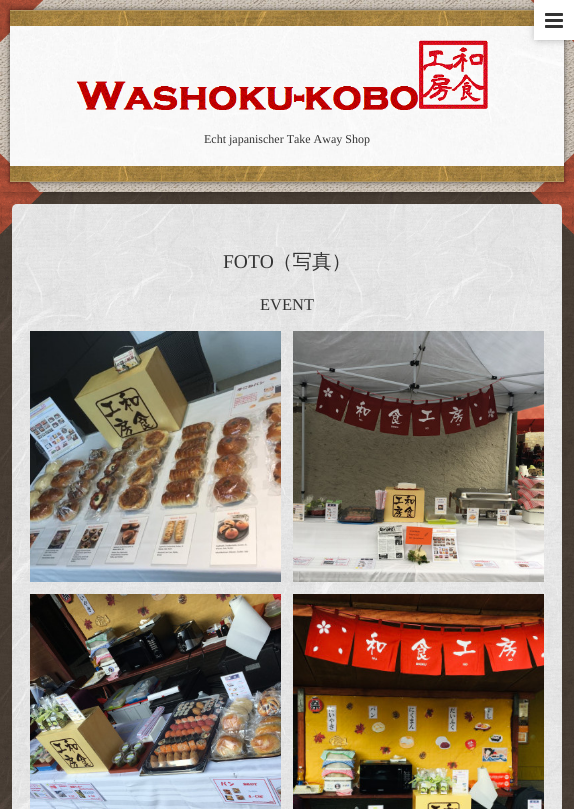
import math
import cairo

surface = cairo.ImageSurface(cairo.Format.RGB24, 574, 809)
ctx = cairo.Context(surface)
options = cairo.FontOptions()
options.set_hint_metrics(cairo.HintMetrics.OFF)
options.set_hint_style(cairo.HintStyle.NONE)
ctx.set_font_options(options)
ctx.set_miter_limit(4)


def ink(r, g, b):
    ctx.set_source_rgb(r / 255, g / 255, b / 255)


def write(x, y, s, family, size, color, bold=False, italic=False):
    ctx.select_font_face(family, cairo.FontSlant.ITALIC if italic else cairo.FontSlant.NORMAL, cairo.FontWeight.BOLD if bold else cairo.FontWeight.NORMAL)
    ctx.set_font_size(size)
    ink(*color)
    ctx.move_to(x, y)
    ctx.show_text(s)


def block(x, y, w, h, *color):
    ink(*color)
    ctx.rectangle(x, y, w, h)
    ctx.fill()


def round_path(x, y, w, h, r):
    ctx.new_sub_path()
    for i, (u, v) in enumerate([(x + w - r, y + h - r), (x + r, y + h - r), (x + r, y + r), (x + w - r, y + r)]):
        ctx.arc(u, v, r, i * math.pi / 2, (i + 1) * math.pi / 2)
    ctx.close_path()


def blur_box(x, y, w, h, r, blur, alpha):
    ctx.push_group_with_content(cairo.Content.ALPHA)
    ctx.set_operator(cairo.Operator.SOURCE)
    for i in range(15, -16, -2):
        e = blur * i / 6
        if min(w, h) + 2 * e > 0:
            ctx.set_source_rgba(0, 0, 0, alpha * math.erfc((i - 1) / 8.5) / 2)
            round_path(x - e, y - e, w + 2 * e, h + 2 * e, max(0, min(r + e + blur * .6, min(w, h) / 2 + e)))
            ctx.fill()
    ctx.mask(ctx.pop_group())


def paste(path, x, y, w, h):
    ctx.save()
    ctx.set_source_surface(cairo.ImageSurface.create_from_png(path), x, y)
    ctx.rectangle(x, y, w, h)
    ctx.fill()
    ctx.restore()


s1 = dict(family="Liberation Serif", size=12, color=(51, 51, 51))
s2 = dict(family="Liberation Serif", size=19.5, color=(51, 51, 51))
s3 = dict(family="WenQuanYi Zen Hei Medium", size=19.5, color=(51, 51, 51))
s4 = dict(family="Liberation Serif", size=16.5, color=(51, 51, 51))

ink(255, 255, 255)
ctx.paint()
paste("pic11.png", 0, 192, 574, 617)
paste("pic12.png", 0, 192, 44, 43)
paste("pic13.png", 530, 192, 44, 44)
paste("pic14.png", 12, 204, 550, 605)
ink(0, 0, 0)
blur_box(4, 5, 566, 184, 0, 5, 0.6)
paste("pic2.png", 0, 0, 574, 192)
paste("pic4.png", 531, 0, 43, 42)
paste("pic3.png", 0, 0, 43, 43)
paste("pic9.png", 0, 153, 40, 39)
paste("pic10.png", 534, 153, 40, 39)
blur_box(10, 10, 554, 172, 0, 2.5, 0.6)
paste("pic5.png", 10, 26, 554, 140)
paste("pic6.png", 10, 11, 524, 15)
block(10, 10, 524, 1, 179, 151, 99)
ink(0, 0, 0)
blur_box(538, 5, 32, 32, 0, 5, 0.6)
block(534, 0, 40, 40, 255, 255, 255)
paste("pic1.png", 545, 13, 18, 15)
paste("pic7.png", 77, 40, 411, 70)
write(204, 143, "Echt japanischer Take Away Shop", **s1)
paste("pic8.png", 10, 166, 554, 15)
block(10, 181, 554, 1, 179, 151, 99)
write(223, 268, "FOTO", **s2)
write(273, 268, "（写真）", **s3)
write(260, 310, "EVENT", **s4)
paste("pic15.png", 30, 331, 251, 251)
paste("pic16.png", 293, 331, 251, 251)
paste("pic17.png", 30, 594, 251, 215)
paste("pic18.png", 293, 594, 251, 215)
surface.write_to_png("screenshot.png")
